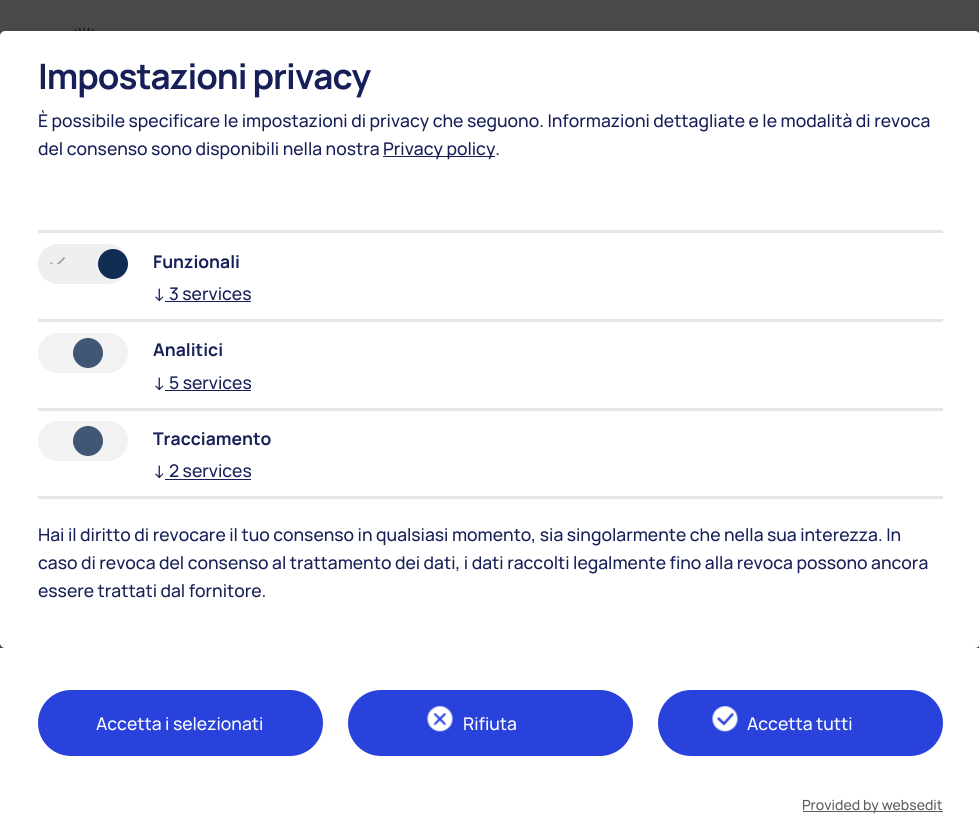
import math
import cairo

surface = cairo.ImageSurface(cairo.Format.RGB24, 979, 834)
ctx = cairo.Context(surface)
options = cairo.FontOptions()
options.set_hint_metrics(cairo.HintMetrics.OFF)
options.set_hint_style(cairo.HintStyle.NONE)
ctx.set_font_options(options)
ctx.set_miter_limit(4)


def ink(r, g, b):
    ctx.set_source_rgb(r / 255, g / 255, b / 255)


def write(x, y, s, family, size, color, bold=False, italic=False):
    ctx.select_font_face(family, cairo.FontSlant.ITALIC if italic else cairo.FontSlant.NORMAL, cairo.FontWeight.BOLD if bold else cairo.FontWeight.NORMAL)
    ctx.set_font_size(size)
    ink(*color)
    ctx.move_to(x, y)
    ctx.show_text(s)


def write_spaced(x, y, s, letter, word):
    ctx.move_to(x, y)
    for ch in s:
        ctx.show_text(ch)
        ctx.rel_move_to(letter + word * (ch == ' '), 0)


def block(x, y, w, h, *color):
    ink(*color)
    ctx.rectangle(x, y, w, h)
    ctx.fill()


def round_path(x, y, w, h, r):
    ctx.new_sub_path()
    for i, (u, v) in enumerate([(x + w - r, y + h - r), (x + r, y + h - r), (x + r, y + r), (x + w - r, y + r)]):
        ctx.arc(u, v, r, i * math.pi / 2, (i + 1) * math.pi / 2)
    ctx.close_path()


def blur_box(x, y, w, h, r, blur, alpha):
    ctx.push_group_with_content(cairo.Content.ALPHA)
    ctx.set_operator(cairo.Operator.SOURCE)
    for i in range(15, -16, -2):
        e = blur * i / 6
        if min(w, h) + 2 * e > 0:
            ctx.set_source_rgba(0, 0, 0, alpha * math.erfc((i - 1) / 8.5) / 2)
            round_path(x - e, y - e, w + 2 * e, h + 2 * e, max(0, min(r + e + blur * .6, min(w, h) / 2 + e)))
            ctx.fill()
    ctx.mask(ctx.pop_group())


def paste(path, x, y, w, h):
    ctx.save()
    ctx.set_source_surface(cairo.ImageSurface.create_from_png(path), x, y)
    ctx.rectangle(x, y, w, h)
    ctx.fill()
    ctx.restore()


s1 = dict(family="Manrope Medium", size=17.5, color=(22, 31, 87))
s2 = dict(family="Manrope", size=17.5, color=(22, 31, 87), bold=True)
s3 = dict(family="Manrope Medium", size=17.5, color=(255, 255, 255))
s4 = dict(family="Manrope Medium", size=14, color=(92, 92, 92))

ink(77, 77, 77)
ctx.paint()
block(0, 0, 979, 36, 73, 73, 72)
paste("pic1.png", 70, 27, 28, 4)
ink(0, 0, 0)
blur_box(6, 38, 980, 616, 5, 6, 0.19)
blur_box(0, 36, 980, 617, 5, 4, 0.2)
ink(255, 255, 255)
round_path(0, 31, 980, 617, 5)
ctx.fill()
ctx.select_font_face("Manrope", cairo.FontSlant.NORMAL, cairo.FontWeight.BOLD)
ctx.set_font_size(35)
ink(22, 31, 87)
write_spaced(38, 89, "Impostazioni privacy", -1, 0)
write(38, 127, "È possibile specificare le impostazioni di privacy che seguono. Informazioni dettagliate e le modalità di revoca", **s1)
write(38, 155, "del consenso sono disponibili nella nostra", **s1)
block(383, 156, 112, 1, 22, 31, 87)
write(383, 155, "Privacy policy.", **s1)
block(38, 230, 905, 3, 230, 230, 230)
ink(239, 239, 239)
round_path(38, 244, 90, 40, 20)
ctx.fill()
ctx.save()
round_path(38, 244, 90, 40, 20)
ctx.clip()
ink(16, 44, 83)
ctx.arc(113, 264, 15, 0, 2 * math.pi)
ctx.fill()
ctx.restore()
paste("pic2.png", 50, 257, 16, 7)
write(153, 268, "Funzionali", **s2)
write(153, 300, "↓ 3 services", **s1)
block(165, 301, 86, 1, 22, 31, 87)
block(38, 319, 905, 3, 230, 230, 230)
ink(242, 242, 242)
round_path(38, 333, 90, 40, 20)
ctx.fill()
ink(64, 86, 117)
ctx.arc(88, 353, 15, 0, 2 * math.pi)
ctx.fill()
write(153, 356, "Analitici", **s2)
write(153, 389, "↓ 5 services", **s1)
block(165, 390, 86, 1, 22, 31, 87)
block(38, 408, 905, 3, 230, 230, 230)
ink(242, 242, 242)
round_path(38, 421, 90, 40, 20)
ctx.fill()
ink(64, 86, 117)
ctx.arc(88, 441, 15, 0, 2 * math.pi)
ctx.fill()
write(153, 445, "Tracciamento", **s2)
write(153, 477, "↓ 2 services", **s1)
block(165, 479, 86, 1, 22, 31, 87)
block(38, 496, 905, 3, 230, 230, 230)
write(38, 541, "Hai il diritto di revocare il tuo consenso in qualsiasi momento, sia singolarmente che nella sua interezza. In", **s1)
write(38, 569, "caso di revoca del consenso al trattamento dei dati, i dati raccolti legalmente fino alla revoca possono ancora", **s1)
write(38, 597, "essere trattati dal fornitore.", **s1)
block(0, 648, 979, 186, 255, 255, 255)
ink(41, 66, 219)
round_path(39.5, 691.5, 282, 63, 31.5)
ctx.fill_preserve()
ctx.set_line_width(3)
ctx.stroke()
write(96, 730, "Accetta i selezionati", **s3)
ink(41, 66, 219)
round_path(349.5, 691.5, 282, 63, 31.5)
ctx.fill_preserve()
ctx.stroke()
paste("pic3.png", 427, 706, 26, 26)
write(463, 730, "Rifiuta", **s3)
ink(41, 66, 219)
round_path(659.5, 691.5, 282, 63, 31.5)
ctx.fill_preserve()
ctx.stroke()
paste("pic4.png", 712, 706, 26, 26)
write(747, 730, "Accetta tutti", **s3)
block(803, 811, 140, 1, 92, 92, 92)
write(802, 810, "Provided by websedit", **s4)
surface.write_to_png("screenshot.png")
